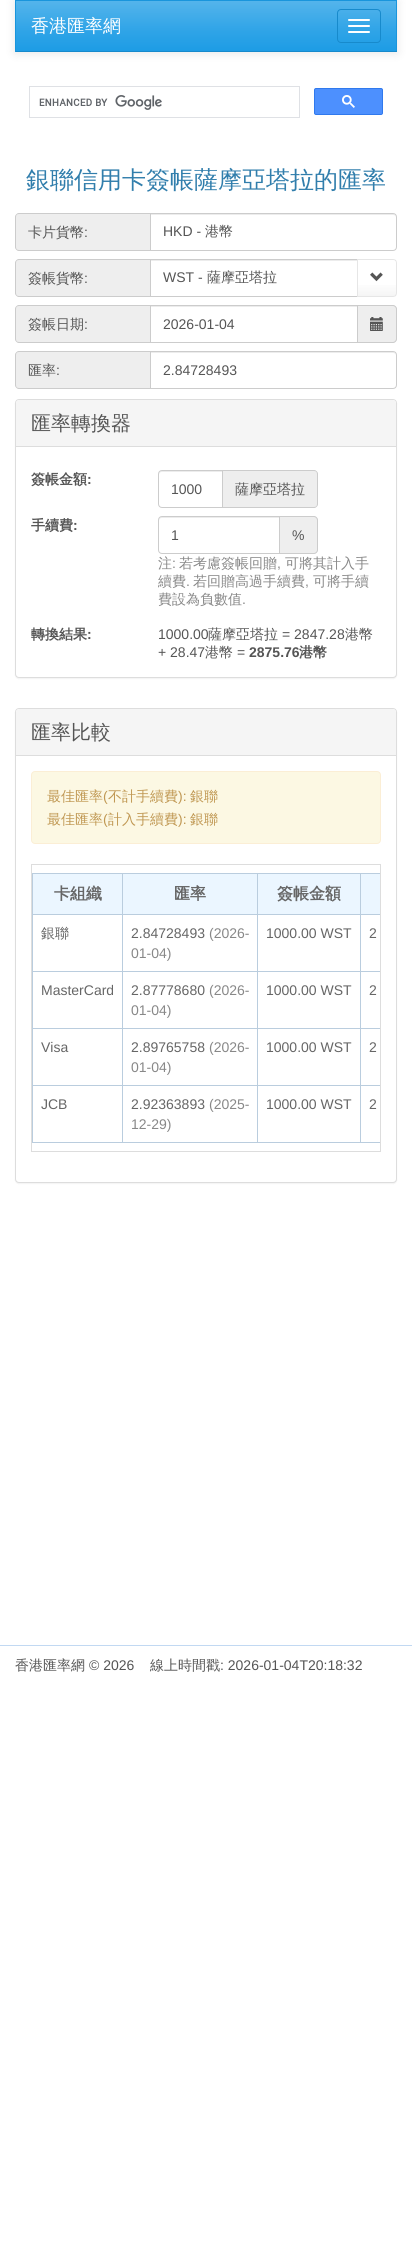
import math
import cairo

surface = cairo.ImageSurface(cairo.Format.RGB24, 412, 2268)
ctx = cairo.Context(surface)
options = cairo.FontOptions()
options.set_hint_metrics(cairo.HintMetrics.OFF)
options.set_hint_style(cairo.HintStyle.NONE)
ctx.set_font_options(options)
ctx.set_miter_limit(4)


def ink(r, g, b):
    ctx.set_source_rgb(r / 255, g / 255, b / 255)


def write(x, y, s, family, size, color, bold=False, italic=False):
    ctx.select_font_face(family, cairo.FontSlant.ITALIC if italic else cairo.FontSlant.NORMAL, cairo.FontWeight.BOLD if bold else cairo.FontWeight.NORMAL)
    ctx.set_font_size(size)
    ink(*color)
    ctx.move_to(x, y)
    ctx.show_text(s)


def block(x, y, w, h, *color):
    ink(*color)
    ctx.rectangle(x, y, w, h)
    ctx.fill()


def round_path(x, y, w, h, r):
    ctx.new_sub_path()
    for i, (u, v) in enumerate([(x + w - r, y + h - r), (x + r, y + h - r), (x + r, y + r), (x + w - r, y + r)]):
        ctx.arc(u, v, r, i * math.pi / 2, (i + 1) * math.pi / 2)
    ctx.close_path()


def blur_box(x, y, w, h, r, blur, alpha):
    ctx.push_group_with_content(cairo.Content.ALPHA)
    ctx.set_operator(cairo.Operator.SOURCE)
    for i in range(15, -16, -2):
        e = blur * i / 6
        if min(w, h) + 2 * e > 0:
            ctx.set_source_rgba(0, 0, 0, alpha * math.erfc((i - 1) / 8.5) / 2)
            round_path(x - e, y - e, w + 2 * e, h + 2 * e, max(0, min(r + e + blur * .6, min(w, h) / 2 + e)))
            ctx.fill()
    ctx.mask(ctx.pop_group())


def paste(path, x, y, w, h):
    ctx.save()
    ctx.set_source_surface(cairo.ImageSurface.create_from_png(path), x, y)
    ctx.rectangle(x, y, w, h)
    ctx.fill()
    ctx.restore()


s1 = dict(family="WenQuanYi Zen Hei Medium", size=18, color=(255, 255, 255))
s2 = dict(family="WenQuanYi Zen Hei Medium", size=24, color=(49, 126, 172))
s3 = dict(family="WenQuanYi Zen Hei Medium", size=14, color=(85, 85, 85))
s4 = dict(family="Liberation Sans", size=14, color=(85, 85, 85))
s5 = dict(family="WenQuanYi Zen Hei Medium", size=20, color=(85, 85, 85))
s6 = dict(family="WenQuanYi Zen Hei", size=14, color=(85, 85, 85), bold=True)
s7 = dict(family="Liberation Sans", size=14, color=(85, 85, 85), bold=True)
s8 = dict(family="WenQuanYi Zen Hei Medium", size=14, color=(136, 136, 136))
s9 = dict(family="Liberation Sans", size=14, color=(136, 136, 136))
s10 = dict(family="WenQuanYi Zen Hei Medium", size=14, color=(192, 152, 83))
s11 = dict(family="Liberation Sans", size=14, color=(192, 152, 83))
s12 = dict(family="WenQuanYi Zen Hei", size=16, color=(102, 102, 102), bold=True)
s13 = dict(family="WenQuanYi Zen Hei Medium", size=14, color=(102, 102, 102))
s14 = dict(family="Liberation Sans", size=14, color=(102, 102, 102))

ink(255, 255, 255)
ctx.paint()
ink(0, 0, 0)
blur_box(15, 1, 382, 52, 0, 5, 0.1)
gradient = cairo.LinearGradient(206, 1, 206, 51)
gradient.add_color_stop_rgba(0, 0.329, 0.706, 0.922, 1)
gradient.add_color_stop_rgba(0.6, 0.184, 0.643, 0.906, 1)
gradient.add_color_stop_rgba(1, 0.114, 0.612, 0.898, 1)
ctx.set_source(gradient)
ctx.rectangle(16, 1, 380, 50)
ctx.fill()
block(15, 0, 382, 1, 25, 149, 220)
block(396, 0, 1, 52, 25, 149, 220)
block(15, 51, 382, 1, 23, 138, 204)
block(15, 0, 1, 52, 25, 149, 220)
write(31, 32, "香港匯率網", **s1)
round_path(337.5, 9.5, 43, 33, 3.5)
ink(23, 138, 204)
ctx.set_line_width(1)
ctx.stroke()
ink(255, 255, 255)
round_path(348, 19, 22, 2, 1)
ctx.fill()
round_path(348, 25, 22, 2, 1)
ctx.fill()
round_path(348, 31, 22, 2, 1)
ctx.fill()
ctx.rectangle(29.5, 86.5, 270, 31)
ink(223, 225, 229)
ctx.stroke()
paste("pic1.png", 39, 95, 123, 15)
ink(77, 144, 254)
round_path(314.5, 88.5, 68, 26, 1.5)
ctx.fill_preserve()
ink(48, 121, 237)
ctx.stroke()
paste("pic2.png", 342, 95, 13, 13)
write(26, 188, "銀聯信用卡簽帳薩摩亞塔拉的匯率", **s2)
ink(238, 238, 238)
ctx.new_path()
ctx.move_to(19, 213)
ctx.line_to(150, 213)
ctx.line_to(150, 251)
ctx.line_to(19, 251)
ctx.curve_to(17, 251, 15, 249, 15, 247)
ctx.line_to(15, 217)
ctx.curve_to(15, 215, 17, 213, 19, 213)
ctx.close_path()
ctx.fill()
ink(204, 204, 204)
ctx.set_fill_rule(cairo.FillRule.EVEN_ODD)
ctx.new_path()
ctx.move_to(19, 213)
ctx.line_to(150, 213)
ctx.line_to(150, 251)
ctx.line_to(19, 251)
ctx.curve_to(17, 251, 15, 249, 15, 247)
ctx.line_to(15, 217)
ctx.curve_to(15, 215, 17, 213, 19, 213)
ctx.close_path()
ctx.move_to(19, 214)
ctx.line_to(150, 214)
ctx.line_to(150, 250)
ctx.line_to(19, 250)
ctx.curve_to(17, 250, 16, 249, 16, 247)
ctx.line_to(16, 217)
ctx.curve_to(16, 215, 17, 214, 19, 214)
ctx.close_path()
ctx.fill()
write(28, 237, "卡片貨幣", **s3)
write(84, 237, ":", **s4)
ink(236, 236, 236)
ctx.set_fill_rule(cairo.FillRule.WINDING)
ctx.new_path()
ctx.move_to(151, 215)
ctx.line_to(393, 215)
ctx.curve_to(395, 215, 396, 216, 396, 218)
ctx.curve_to(396, 216, 395, 214, 393, 214)
ctx.line_to(151, 214)
ctx.close_path()
ctx.fill()
ctx.new_path()
ctx.move_to(150.5, 213.5)
ctx.line_to(393, 213.5)
ctx.curve_to(395, 213.5, 396.5, 215, 396.5, 217)
ctx.line_to(396.5, 247)
ctx.curve_to(396.5, 249, 395, 250.5, 393, 250.5)
ctx.line_to(150.5, 250.5)
ctx.close_path()
ink(204, 204, 204)
ctx.stroke()
write(163, 236, "HKD -", **s4)
write(205, 236, "港幣", **s3)
ink(238, 238, 238)
ctx.new_path()
ctx.move_to(19, 259)
ctx.line_to(150, 259)
ctx.line_to(150, 297)
ctx.line_to(19, 297)
ctx.curve_to(17, 297, 15, 295, 15, 293)
ctx.line_to(15, 263)
ctx.curve_to(15, 261, 17, 259, 19, 259)
ctx.close_path()
ctx.fill()
ink(204, 204, 204)
ctx.set_fill_rule(cairo.FillRule.EVEN_ODD)
ctx.new_path()
ctx.move_to(19, 259)
ctx.line_to(150, 259)
ctx.line_to(150, 297)
ctx.line_to(19, 297)
ctx.curve_to(17, 297, 15, 295, 15, 293)
ctx.line_to(15, 263)
ctx.curve_to(15, 261, 17, 259, 19, 259)
ctx.close_path()
ctx.move_to(19, 260)
ctx.line_to(150, 260)
ctx.line_to(150, 296)
ctx.line_to(19, 296)
ctx.curve_to(17, 296, 16, 295, 16, 293)
ctx.line_to(16, 263)
ctx.curve_to(16, 261, 17, 260, 19, 260)
ctx.close_path()
ctx.fill()
write(28, 283, "簽帳貨幣", **s3)
write(84, 283, ":", **s4)
block(151, 260, 206, 1, 236, 236, 236)
ctx.rectangle(150.5, 259.5, 207, 37)
ink(204, 204, 204)
ctx.stroke()
write(163, 282, "WST -", **s4)
write(207, 282, "薩摩亞塔拉", **s3)
ink(255, 255, 255)
ctx.new_path()
ctx.move_to(357, 259)
ctx.line_to(393, 259)
ctx.curve_to(395, 259, 397, 261, 397, 263)
ctx.line_to(397, 293)
ctx.curve_to(397, 295, 395, 297, 393, 297)
ctx.line_to(357, 297)
ctx.close_path()
ctx.fill()
gradient = cairo.LinearGradient(377, 260, 377, 296)
gradient.add_color_stop_rgba(0, 1, 1, 1, 1)
gradient.add_color_stop_rgba(0.6, 1, 1, 1, 1)
gradient.add_color_stop_rgba(1, 0.961, 0.961, 0.961, 1)
ctx.set_source(gradient)
ctx.rectangle(358, 285, 38, 11)
ctx.fill()
ink(230, 230, 230)
ctx.set_fill_rule(cairo.FillRule.WINDING)
ctx.new_path()
ctx.move_to(357, 259)
ctx.line_to(358, 260)
ctx.line_to(393, 260)
ctx.curve_to(394, 260, 395, 260, 395, 261)
ctx.line_to(396, 260)
ctx.curve_to(395, 259.5, 394, 259, 393, 259)
ctx.close_path()
ctx.fill()
ctx.set_source_rgba(0, 0, 0, 0.1)
ctx.new_path()
ctx.move_to(397, 293)
ctx.line_to(397, 263)
ctx.curve_to(397, 262, 396.5, 261, 396, 260)
ctx.line_to(395, 261)
ctx.curve_to(396, 261, 396, 262, 396, 263)
ctx.line_to(396, 293)
ctx.curve_to(396, 294, 396, 295, 395, 295)
ctx.line_to(396, 296)
ctx.curve_to(396.5, 295, 397, 294, 397, 293)
ctx.close_path()
ctx.fill()
ink(230, 230, 230)
ctx.new_path()
ctx.move_to(393, 297)
ctx.curve_to(394, 297, 395, 296.5, 396, 296)
ctx.line_to(395, 295)
ctx.curve_to(395, 296, 394, 296, 393, 296)
ctx.line_to(358, 296)
ctx.line_to(357, 297)
ctx.close_path()
ctx.fill()
ctx.set_source_rgba(0, 0, 0, 0.1)
ctx.new_path()
ctx.move_to(357, 259)
ctx.line_to(357, 297)
ctx.line_to(358, 296)
ctx.line_to(358, 260)
ctx.close_path()
ctx.fill()
paste("pic3.png", 370, 272, 13, 10)
ink(238, 238, 238)
ctx.new_path()
ctx.move_to(19, 305)
ctx.line_to(150, 305)
ctx.line_to(150, 343)
ctx.line_to(19, 343)
ctx.curve_to(17, 343, 15, 341, 15, 339)
ctx.line_to(15, 309)
ctx.curve_to(15, 307, 17, 305, 19, 305)
ctx.close_path()
ctx.fill()
ink(204, 204, 204)
ctx.set_fill_rule(cairo.FillRule.EVEN_ODD)
ctx.new_path()
ctx.move_to(19, 305)
ctx.line_to(150, 305)
ctx.line_to(150, 343)
ctx.line_to(19, 343)
ctx.curve_to(17, 343, 15, 341, 15, 339)
ctx.line_to(15, 309)
ctx.curve_to(15, 307, 17, 305, 19, 305)
ctx.close_path()
ctx.move_to(19, 306)
ctx.line_to(150, 306)
ctx.line_to(150, 342)
ctx.line_to(19, 342)
ctx.curve_to(17, 342, 16, 341, 16, 339)
ctx.line_to(16, 309)
ctx.curve_to(16, 307, 17, 306, 19, 306)
ctx.close_path()
ctx.fill()
write(28, 329, "簽帳日期", **s3)
write(84, 329, ":", **s4)
block(151, 306, 206, 1, 236, 236, 236)
ctx.rectangle(150.5, 305.5, 207, 37)
ink(204, 204, 204)
ctx.stroke()
write(163, 329, "2026-01-04", **s4)
ink(238, 238, 238)
ctx.new_path()
ctx.move_to(358, 305)
ctx.line_to(393, 305)
ctx.curve_to(395, 305, 397, 307, 397, 309)
ctx.line_to(397, 339)
ctx.curve_to(397, 341, 395, 343, 393, 343)
ctx.line_to(358, 343)
ctx.close_path()
ctx.fill()
ink(204, 204, 204)
ctx.new_path()
ctx.move_to(358, 305)
ctx.line_to(393, 305)
ctx.curve_to(395, 305, 397, 307, 397, 309)
ctx.line_to(397, 339)
ctx.curve_to(397, 341, 395, 343, 393, 343)
ctx.line_to(358, 343)
ctx.close_path()
ctx.move_to(358, 306)
ctx.line_to(393, 306)
ctx.curve_to(394.5, 306, 396, 307.5, 396, 309)
ctx.line_to(396, 339)
ctx.curve_to(396, 340.5, 394.5, 342, 393, 342)
ctx.line_to(358, 342)
ctx.close_path()
ctx.fill()
paste("pic4.png", 370, 317, 13, 14)
ink(238, 238, 238)
ctx.new_path()
ctx.move_to(19, 351)
ctx.line_to(150, 351)
ctx.line_to(150, 389)
ctx.line_to(19, 389)
ctx.curve_to(17, 389, 15, 387, 15, 385)
ctx.line_to(15, 355)
ctx.curve_to(15, 353, 17, 351, 19, 351)
ctx.close_path()
ctx.fill()
ink(204, 204, 204)
ctx.new_path()
ctx.move_to(19, 351)
ctx.line_to(150, 351)
ctx.line_to(150, 389)
ctx.line_to(19, 389)
ctx.curve_to(17, 389, 15, 387, 15, 385)
ctx.line_to(15, 355)
ctx.curve_to(15, 353, 17, 351, 19, 351)
ctx.close_path()
ctx.move_to(19, 352)
ctx.line_to(150, 352)
ctx.line_to(150, 388)
ctx.line_to(19, 388)
ctx.curve_to(17, 388, 16, 387, 16, 385)
ctx.line_to(16, 355)
ctx.curve_to(16, 353, 17, 352, 19, 352)
ctx.close_path()
ctx.fill()
write(28, 375, "匯率", **s3)
write(56, 375, ":", **s4)
ink(236, 236, 236)
ctx.set_fill_rule(cairo.FillRule.WINDING)
ctx.new_path()
ctx.move_to(151, 353)
ctx.line_to(393, 353)
ctx.curve_to(395, 353, 396, 354, 396, 356)
ctx.curve_to(396, 354, 395, 352, 393, 352)
ctx.line_to(151, 352)
ctx.close_path()
ctx.fill()
ctx.new_path()
ctx.move_to(150.5, 351.5)
ctx.line_to(393, 351.5)
ctx.curve_to(395, 351.5, 396.5, 353, 396.5, 355)
ctx.line_to(396.5, 385)
ctx.curve_to(396.5, 387, 395, 388.5, 393, 388.5)
ctx.line_to(150.5, 388.5)
ctx.close_path()
ink(204, 204, 204)
ctx.stroke()
write(163, 375, "2.84728493", **s4)
ink(0, 0, 0)
blur_box(15, 400, 382, 279, 4, 0.5, 0.05)
ink(255, 255, 255)
round_path(15.5, 399.5, 381, 278, 3.5)
ctx.fill_preserve()
ink(221, 221, 221)
ctx.stroke()
ink(245, 245, 245)
ctx.new_path()
ctx.move_to(19, 400)
ctx.line_to(393, 400)
ctx.curve_to(394.5, 400, 396, 401.5, 396, 403)
ctx.line_to(396, 447)
ctx.line_to(16, 447)
ctx.line_to(16, 403)
ctx.curve_to(16, 401.5, 17.5, 400, 19, 400)
ctx.close_path()
ctx.fill()
block(16, 446, 380, 1, 221, 221, 221)
write(31, 430, "匯率轉換器", **s5)
write(31, 484, "簽帳金額", **s6)
write(87, 484, ":", **s7)
ink(236, 236, 236)
ctx.new_path()
ctx.move_to(162, 472)
ctx.line_to(222, 472)
ctx.line_to(222, 471)
ctx.line_to(162, 471)
ctx.curve_to(160, 471, 159, 472, 159, 474)
ctx.line_to(159, 475)
ctx.curve_to(159, 473, 160, 472, 162, 472)
ctx.close_path()
ctx.fill()
ctx.new_path()
ctx.move_to(162, 470.5)
ctx.line_to(222.5, 470.5)
ctx.line_to(222.5, 507.5)
ctx.line_to(162, 507.5)
ctx.curve_to(160, 507.5, 158.5, 506, 158.5, 504)
ctx.line_to(158.5, 474)
ctx.curve_to(158.5, 472, 160, 470.5, 162, 470.5)
ctx.close_path()
ink(204, 204, 204)
ctx.stroke()
write(171, 494, "1000", **s4)
ink(238, 238, 238)
ctx.new_path()
ctx.move_to(223, 470)
ctx.line_to(314, 470)
ctx.curve_to(316, 470, 318, 472, 318, 474)
ctx.line_to(318, 504)
ctx.curve_to(318, 506, 316, 508, 314, 508)
ctx.line_to(223, 508)
ctx.close_path()
ctx.fill()
ink(204, 204, 204)
ctx.set_fill_rule(cairo.FillRule.EVEN_ODD)
ctx.new_path()
ctx.move_to(223, 470)
ctx.line_to(314, 470)
ctx.curve_to(316, 470, 318, 472, 318, 474)
ctx.line_to(318, 504)
ctx.curve_to(318, 506, 316, 508, 314, 508)
ctx.line_to(223, 508)
ctx.close_path()
ctx.move_to(223, 471)
ctx.line_to(314, 471)
ctx.curve_to(316, 471, 317, 472, 317, 474)
ctx.line_to(317, 504)
ctx.curve_to(317, 506, 316, 507, 314, 507)
ctx.line_to(223, 507)
ctx.close_path()
ctx.fill()
write(235, 494, "薩摩亞塔拉", **s3)
write(31, 530, "手續費", **s6)
write(73, 530, ":", **s7)
ink(236, 236, 236)
ctx.set_fill_rule(cairo.FillRule.WINDING)
ctx.new_path()
ctx.move_to(162, 518)
ctx.line_to(279, 518)
ctx.line_to(279, 517)
ctx.line_to(162, 517)
ctx.curve_to(160, 517, 159, 518, 159, 520)
ctx.line_to(159, 521)
ctx.curve_to(159, 519, 160, 518, 162, 518)
ctx.close_path()
ctx.fill()
ctx.new_path()
ctx.move_to(162, 516.5)
ctx.line_to(279.5, 516.5)
ctx.line_to(279.5, 553.5)
ctx.line_to(162, 553.5)
ctx.curve_to(160, 553.5, 158.5, 552, 158.5, 550)
ctx.line_to(158.5, 520)
ctx.curve_to(158.5, 518, 160, 516.5, 162, 516.5)
ctx.close_path()
ink(204, 204, 204)
ctx.stroke()
write(171, 540, "1", **s4)
ink(238, 238, 238)
ctx.new_path()
ctx.move_to(280, 516)
ctx.line_to(314, 516)
ctx.curve_to(316, 516, 318, 518, 318, 520)
ctx.line_to(318, 550)
ctx.curve_to(318, 552, 316, 554, 314, 554)
ctx.line_to(280, 554)
ctx.close_path()
ctx.fill()
ink(204, 204, 204)
ctx.set_fill_rule(cairo.FillRule.EVEN_ODD)
ctx.new_path()
ctx.move_to(280, 516)
ctx.line_to(314, 516)
ctx.curve_to(316, 516, 318, 518, 318, 520)
ctx.line_to(318, 550)
ctx.curve_to(318, 552, 316, 554, 314, 554)
ctx.line_to(280, 554)
ctx.close_path()
ctx.move_to(280, 517)
ctx.line_to(314, 517)
ctx.curve_to(315.5, 517, 317, 518.5, 317, 520)
ctx.line_to(317, 550)
ctx.curve_to(317, 551.5, 315.5, 553, 314, 553)
ctx.line_to(280, 553)
ctx.close_path()
ctx.fill()
write(292, 540, "%", **s4)
write(158, 568, "注", **s8)
write(172, 568, ":", **s9)
write(179, 568, "若考慮簽帳回贈", **s8)
write(277, 568, ",", **s9)
write(285, 568, "可將其計入手", **s8)
write(158, 586, "續費", **s8)
write(186, 586, ".", **s9)
write(193, 586, "若回贈高過手續費", **s8)
write(305, 586, ",", **s9)
write(313, 586, "可將手續", **s8)
write(158, 604, "費設為負數值", **s8)
write(242, 604, ".", **s9)
write(31, 639, "轉換結果", **s6)
write(87, 639, ":", **s7)
write(158, 639, "1000.00", **s4)
write(208, 639, "薩摩亞塔拉", **s3)
write(282, 639, "= 2847.28", **s4)
write(345, 639, "港幣", **s3)
write(158, 657, "+ 28.47", **s4)
write(205, 657, "港幣", **s3)
write(237, 657, "=", **s4)
write(249, 657, "2875.76", **s7)
write(299, 657, "港幣", **s6)
ink(0, 0, 0)
blur_box(15, 709, 382, 475, 4, 0.5, 0.05)
ink(255, 255, 255)
round_path(15.5, 708.5, 381, 474, 3.5)
ctx.fill_preserve()
ink(221, 221, 221)
ctx.stroke()
ink(245, 245, 245)
ctx.new_path()
ctx.move_to(19, 709)
ctx.line_to(393, 709)
ctx.curve_to(394.5, 709, 396, 710.5, 396, 712)
ctx.line_to(396, 756)
ctx.line_to(16, 756)
ctx.line_to(16, 712)
ctx.curve_to(16, 710.5, 17.5, 709, 19, 709)
ctx.close_path()
ctx.fill()
block(16, 755, 380, 1, 221, 221, 221)
write(31, 739, "匯率比較", **s5)
ink(252, 248, 227)
round_path(31.5, 771.5, 349, 72, 3.5)
ctx.fill_preserve()
ink(251, 238, 213)
ctx.stroke()
write(47, 801, "最佳匯率", **s10)
write(103, 801, "(", **s11)
write(108, 801, "不計手續費", **s10)
write(178, 801, "):", **s11)
write(190, 801, "銀聯", **s10)
write(47, 824, "最佳匯率", **s10)
write(103, 824, "(", **s11)
write(108, 824, "計入手續費", **s10)
write(178, 824, "):", **s11)
write(190, 824, "銀聯", **s10)
ctx.rectangle(31.5, 864.5, 349, 287)
ink(221, 221, 221)
ctx.stroke()
block(33, 874, 347, 40, 235, 246, 255)
block(360, 873, 20, 1, 186, 205, 222)
block(360, 914, 20, 1, 186, 205, 222)
block(360, 971, 20, 1, 186, 205, 222)
block(360, 1028, 20, 1, 186, 205, 222)
block(360, 1085, 20, 1, 186, 205, 222)
block(360, 1142, 20, 1, 186, 205, 222)
block(360, 1085, 1, 58, 186, 205, 222)
block(257, 1085, 104, 1, 186, 205, 222)
block(360, 1028, 1, 58, 186, 205, 222)
block(257, 1028, 104, 1, 186, 205, 222)
block(360, 971, 1, 58, 186, 205, 222)
block(257, 971, 104, 1, 186, 205, 222)
block(360, 914, 1, 58, 186, 205, 222)
block(257, 914, 104, 1, 186, 205, 222)
block(360, 873, 1, 42, 186, 205, 222)
block(257, 873, 104, 1, 186, 205, 222)
block(257, 1142, 104, 1, 186, 205, 222)
block(257, 1085, 1, 58, 186, 205, 222)
block(122, 1085, 136, 1, 186, 205, 222)
block(257, 1028, 1, 58, 186, 205, 222)
block(122, 1028, 136, 1, 186, 205, 222)
block(257, 971, 1, 58, 186, 205, 222)
block(122, 971, 136, 1, 186, 205, 222)
block(257, 914, 1, 58, 186, 205, 222)
block(122, 914, 136, 1, 186, 205, 222)
block(257, 873, 1, 42, 186, 205, 222)
block(122, 873, 136, 1, 186, 205, 222)
block(122, 1142, 136, 1, 186, 205, 222)
block(122, 1085, 1, 58, 186, 205, 222)
block(32, 1085, 91, 1, 186, 205, 222)
block(122, 1028, 1, 58, 186, 205, 222)
block(32, 1028, 91, 1, 186, 205, 222)
block(122, 971, 1, 58, 186, 205, 222)
block(32, 971, 91, 1, 186, 205, 222)
block(122, 914, 1, 58, 186, 205, 222)
block(32, 914, 91, 1, 186, 205, 222)
block(122, 873, 1, 42, 186, 205, 222)
block(32, 873, 91, 1, 186, 205, 222)
block(32, 1142, 91, 1, 186, 205, 222)
block(32, 1085, 1, 58, 186, 205, 222)
block(32, 1028, 1, 58, 186, 205, 222)
block(32, 971, 1, 58, 186, 205, 222)
block(32, 914, 1, 58, 186, 205, 222)
block(32, 873, 1, 42, 186, 205, 222)
write(54, 899, "卡組織", **s12)
write(174, 899, "匯率", **s12)
write(277, 899, "簽帳金額", **s12)
write(41, 938, "銀聯", **s13)
write(131, 938, "2.84728493", **s14)
write(209, 938, "(2026-", **s9)
write(131, 958, "01-04)", **s9)
write(266, 938, "1000.00 WST", **s14)
write(369, 938, "2", **s14)
write(41, 995, "MasterCard", **s14)
write(131, 995, "2.87778680", **s14)
write(209, 995, "(2026-", **s9)
write(131, 1015, "01-04)", **s9)
write(266, 995, "1000.00 WST", **s14)
write(369, 995, "2", **s14)
write(41, 1052, "Visa", **s14)
write(131, 1052, "2.89765758", **s14)
write(209, 1052, "(2026-", **s9)
write(131, 1072, "01-04)", **s9)
write(266, 1052, "1000.00 WST", **s14)
write(369, 1052, "2", **s14)
write(41, 1109, "JCB", **s14)
write(131, 1109, "2.92363893", **s14)
write(209, 1109, "(2025-", **s9)
write(131, 1129, "12-29)", **s9)
write(266, 1109, "1000.00 WST", **s14)
write(369, 1109, "2", **s14)
block(0, 1645, 412, 1, 194, 217, 242)
write(15, 1670, "香港匯率網", **s3)
write(89, 1670, "© 2026", **s4)
write(150, 1670, "線上時間戳", **s3)
write(220, 1670, ": 2026-01-04T20:18:32", **s4)
surface.write_to_png("screenshot.png")
